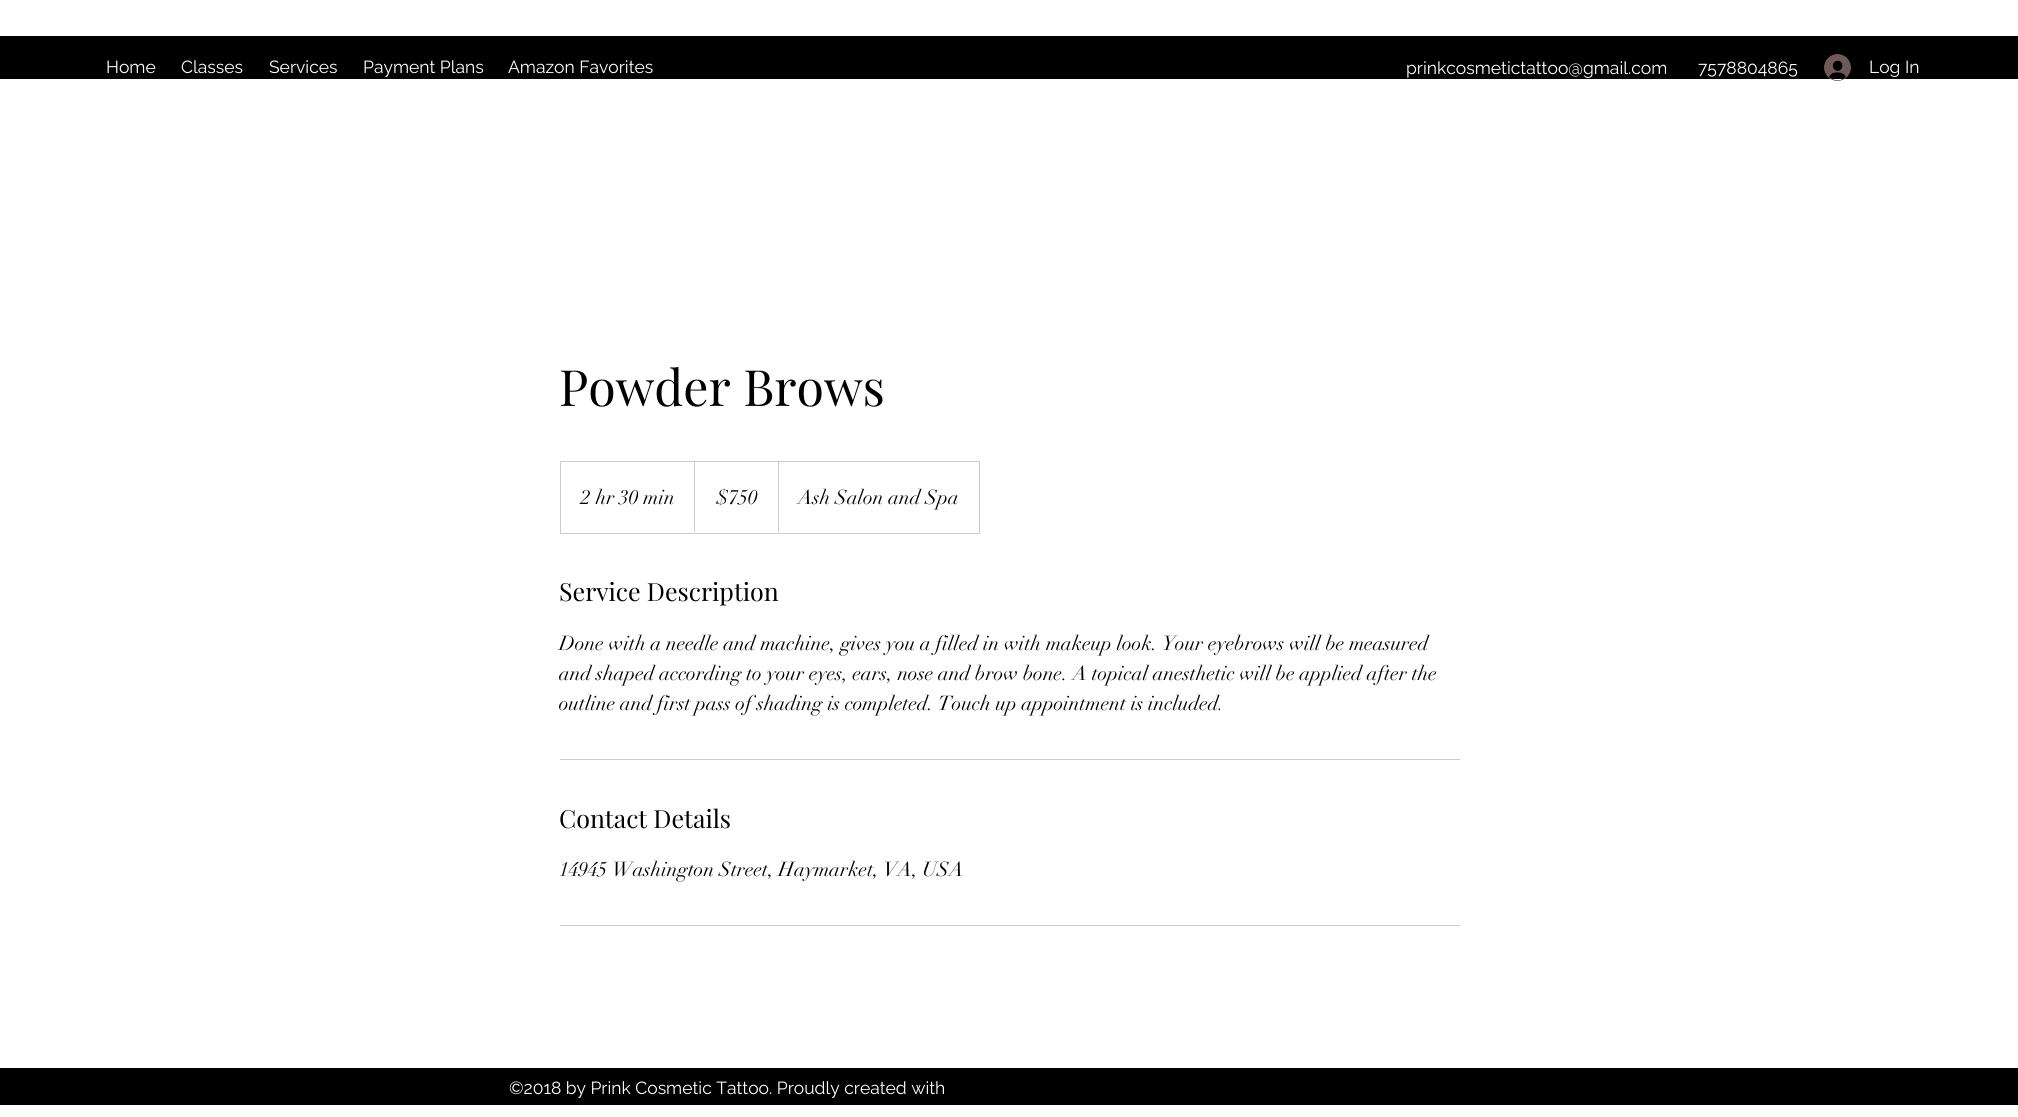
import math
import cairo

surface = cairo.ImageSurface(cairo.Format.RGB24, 2018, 1117)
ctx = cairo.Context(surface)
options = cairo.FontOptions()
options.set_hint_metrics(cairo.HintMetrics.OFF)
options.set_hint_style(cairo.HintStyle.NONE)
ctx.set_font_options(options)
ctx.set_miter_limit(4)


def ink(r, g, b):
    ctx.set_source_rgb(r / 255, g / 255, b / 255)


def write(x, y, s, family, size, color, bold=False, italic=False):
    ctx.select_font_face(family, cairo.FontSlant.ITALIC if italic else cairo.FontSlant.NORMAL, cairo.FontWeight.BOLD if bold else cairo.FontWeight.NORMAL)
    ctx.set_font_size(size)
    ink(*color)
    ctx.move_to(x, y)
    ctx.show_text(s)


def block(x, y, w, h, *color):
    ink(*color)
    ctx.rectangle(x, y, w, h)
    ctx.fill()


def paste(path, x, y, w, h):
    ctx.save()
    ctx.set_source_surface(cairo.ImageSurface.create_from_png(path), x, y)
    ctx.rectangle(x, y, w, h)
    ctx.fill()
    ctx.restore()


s1 = dict(family="Raleway", size=17.5, color=(255, 255, 255))
s2 = dict(family="Playfair Display", size=50, color=(0, 0, 0))
s3 = dict(family="didot", size=20, color=(0, 0, 0))
s4 = dict(family="Playfair Display", size=25, color=(0, 0, 0))

ink(255, 255, 255)
ctx.paint()
block(0, 36, 2018, 43, 0, 0, 0)
write(106, 73, "Home", **s1)
write(181, 73, "Classes", **s1)
write(269, 73, "Services", **s1)
write(363, 73, "Payment Plans", **s1)
write(508, 73, "Amazon Favorites", **s1)
write(1406, 74, "prinkcosmetictattoo@gmail.com", **s1)
write(1698, 74, "7578804865", **s1)
paste("pic1.png", 1824, 54, 27, 27)
write(1869, 73, "Log In", **s1)
write(559, 406, "Powder Brows", **s2)
ctx.rectangle(560.5, 461.5, 419, 72)
ink(204, 204, 204)
ctx.set_line_width(1)
ctx.stroke()
write(581, 504, "2 hr 30 min", **s3)
ink(204, 204, 204)
ctx.new_path()
ctx.move_to(694, 532)
ctx.line_to(694, 461)
ctx.line_to(695, 462)
ctx.line_to(695, 532)
ctx.close_path()
ctx.fill()
write(716, 504, "$750", **s3)
ink(204, 204, 204)
ctx.new_path()
ctx.move_to(778, 532)
ctx.line_to(778, 461)
ctx.line_to(779, 462)
ctx.line_to(779, 532)
ctx.close_path()
ctx.fill()
write(798, 504, "Ash Salon and Spa", **s3)
write(559, 601, "Service Description", **s4)
write(559, 650, "Done with a needle and machine, gives you a filled in with makeup look. Your eyebrows will be measured", **s3)
write(559, 680, "and shaped according to your eyes, ears, nose and brow bone. A topical anesthetic will be applied after the", **s3)
write(559, 710, "outline and first pass of shading is completed. Touch up appointment is included.", **s3)
block(560, 759, 900, 1, 204, 204, 204)
write(559, 828, "Contact Details", **s4)
write(559, 876, "14945 Washington Street, Haymarket, VA, USA", **s3)
block(560, 925, 900, 1, 204, 204, 204)
block(0, 1068, 2018, 37, 0, 0, 0)
write(509, 1094, "©2018 by Prink Cosmetic Tattoo. Proudly created with", **s1)
surface.write_to_png("screenshot.png")
